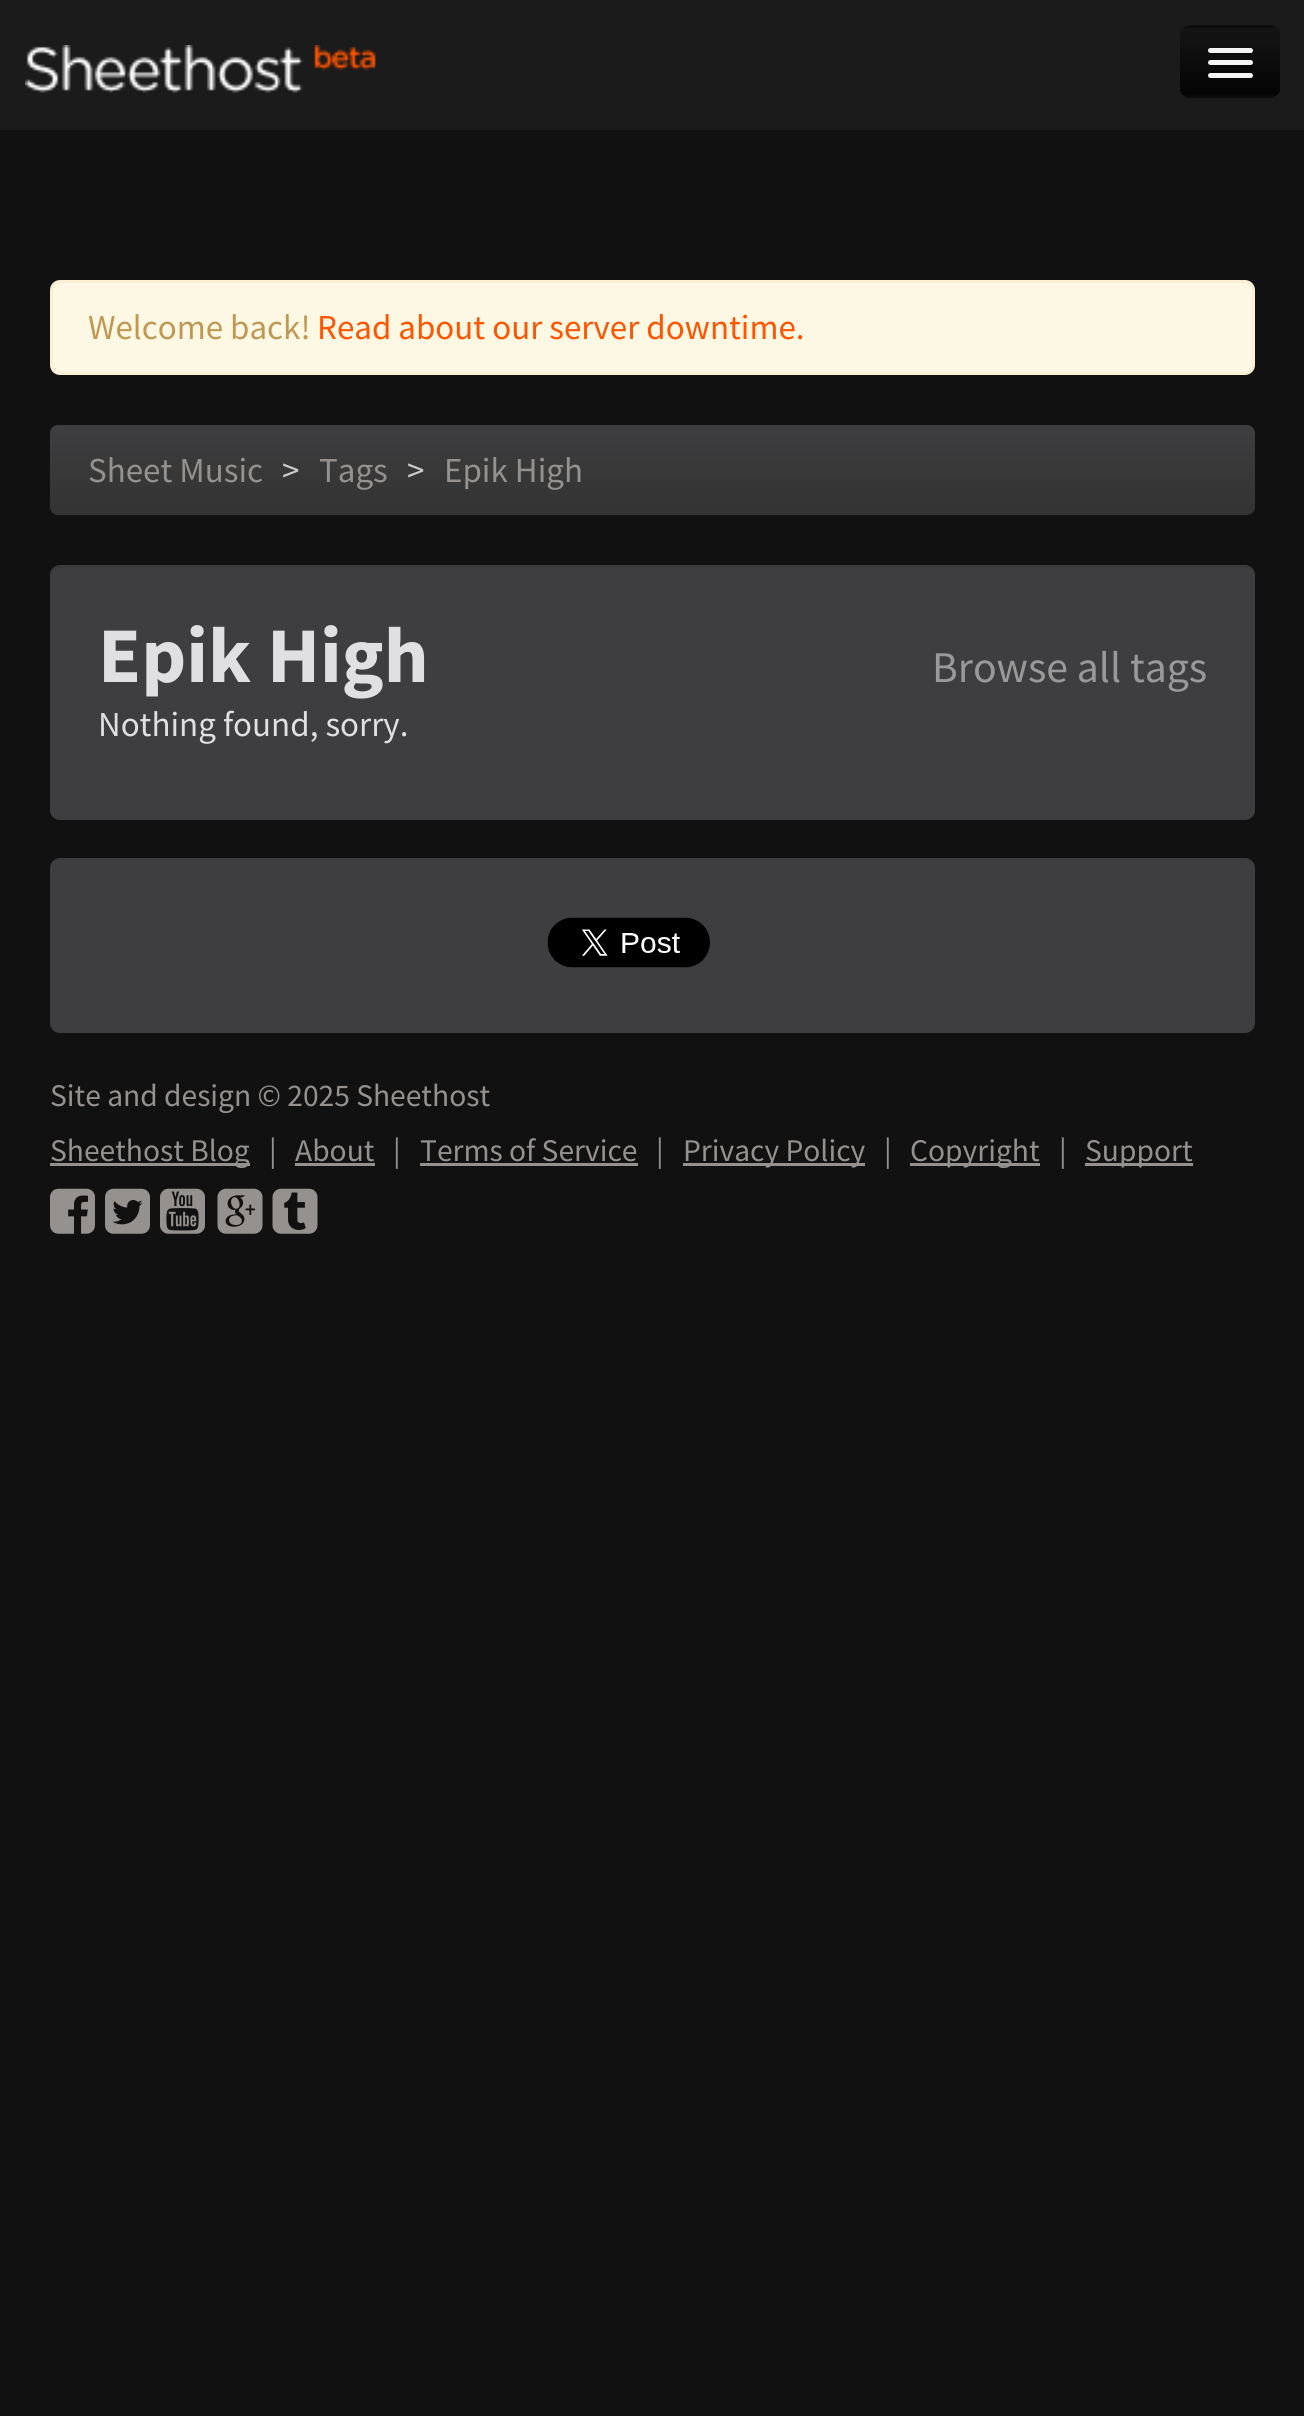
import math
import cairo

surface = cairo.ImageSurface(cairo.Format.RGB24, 1304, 2416)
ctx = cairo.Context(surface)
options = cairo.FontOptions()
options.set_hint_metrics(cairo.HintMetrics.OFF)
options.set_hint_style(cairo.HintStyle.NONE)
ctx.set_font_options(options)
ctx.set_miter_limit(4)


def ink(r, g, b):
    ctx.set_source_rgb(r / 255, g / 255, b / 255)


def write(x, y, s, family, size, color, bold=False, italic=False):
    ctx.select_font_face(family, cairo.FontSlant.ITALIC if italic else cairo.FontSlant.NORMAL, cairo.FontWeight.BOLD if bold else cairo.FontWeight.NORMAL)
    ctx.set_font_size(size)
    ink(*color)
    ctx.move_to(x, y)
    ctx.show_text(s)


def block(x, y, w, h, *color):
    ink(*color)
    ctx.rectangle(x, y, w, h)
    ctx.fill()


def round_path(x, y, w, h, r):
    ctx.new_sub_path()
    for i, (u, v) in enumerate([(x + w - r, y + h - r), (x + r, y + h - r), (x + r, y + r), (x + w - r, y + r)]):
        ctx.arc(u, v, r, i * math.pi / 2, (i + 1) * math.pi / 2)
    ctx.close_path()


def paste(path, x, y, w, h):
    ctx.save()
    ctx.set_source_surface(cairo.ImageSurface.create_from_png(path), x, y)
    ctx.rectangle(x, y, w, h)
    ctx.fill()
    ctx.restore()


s1 = dict(family="Source Sans Pro", size=35, color=(192, 152, 83))
s2 = dict(family="Source Sans Pro", size=35, color=(255, 84, 0))
s3 = dict(family="Source Sans Pro", size=35, color=(148, 145, 143))
s4 = dict(family="Source Sans Pro", size=35, color=(204, 204, 204))
s5 = dict(family="Source Sans Pro", size=78.75, color=(224, 224, 226), bold=True)
s6 = dict(family="Source Sans Pro", size=43.75, color=(153, 153, 153))
s7 = dict(family="Source Sans Pro", size=35, color=(224, 224, 226))
s8 = dict(family="Source Sans Pro", size=31.5, color=(148, 145, 143))

ink(18, 17, 17)
ctx.paint()
block(0, 0, 1304, 130, 27, 27, 27)
paste("pic1.png", 25, 45, 351, 48)
ink(14, 14, 14)
round_path(1180, 25, 100, 73, 10)
ctx.fill()
ctx.save()
round_path(1180, 25, 100, 73, 10)
ctx.clip()
gradient = cairo.LinearGradient(1230, 27, 1230, 95)
gradient.add_color_stop_rgba(0, 0.082, 0.082, 0.082, 1)
gradient.add_color_stop_rgba(1, 0.016, 0.016, 0.016, 1)
ctx.set_source(gradient)
ctx.rectangle(1180, 28, 100, 67)
ctx.fill()
ctx.restore()
ctx.new_path()
ctx.move_to(1276, 93.5)
ctx.curve_to(1274.5, 95.5, 1272.5, 96, 1270, 96)
ctx.line_to(1190, 96)
ctx.curve_to(1187.5, 96, 1185.5, 95.5, 1184, 93.5)
ctx.set_source_rgba(0, 0, 0, 0.25)
ctx.set_line_width(2.5)
ctx.stroke()
ink(11, 11, 11)
ctx.new_path()
ctx.move_to(1208, 52)
ctx.curve_to(1206, 57, 1216, 55, 1217, 55)
ctx.line_to(1244, 55)
ctx.curve_to(1245, 55, 1252, 57, 1253, 53)
ctx.line_to(1252, 51)
ctx.line_to(1250, 52)
ctx.line_to(1210, 52)
ctx.close_path()
ctx.fill()
ink(245, 245, 245)
round_path(1208, 48, 45, 5, 2.5)
ctx.fill()
ink(8, 8, 8)
ctx.new_path()
ctx.move_to(1208, 64)
ctx.curve_to(1206, 69, 1217, 68, 1217, 68)
ctx.line_to(1244, 68)
ctx.curve_to(1245, 68, 1252, 70, 1253, 66)
ctx.line_to(1252, 64)
ctx.line_to(1250, 65)
ctx.curve_to(1247, 65, 1210, 66, 1208, 64)
ctx.close_path()
ctx.fill()
ink(245, 245, 245)
round_path(1208, 60, 45, 5, 2.5)
ctx.fill()
round_path(1208, 73, 45, 5, 2.5)
ctx.fill()
ink(252, 248, 227)
round_path(51.5, 281.5, 1202, 92, 8.5)
ctx.fill_preserve()
ink(251, 238, 213)
ctx.set_line_width(3)
ctx.stroke()
write(88, 339, "Welcome back!", **s1)
write(317, 339, "Read about our server downtime.", **s2)
gradient = cairo.LinearGradient(653, 425, 653, 515)
gradient.add_color_stop_rgba(0, 0.243, 0.243, 0.251, 1)
gradient.add_color_stop_rgba(1, 0.2, 0.2, 0.2, 1)
ctx.set_source(gradient)
round_path(50, 425, 1205, 90, 8)
ctx.fill()
write(88, 482, "Sheet Music", **s3)
write(282, 482, ">", **s4)
write(319, 482, "Tags", **s3)
write(407, 482, ">", **s4)
write(444, 482, "Epik High", **s3)
ink(62, 62, 64)
round_path(50, 565, 1205, 255, 10)
ctx.fill()
ctx.set_source_rgba(0, 0, 0, 0.05)
ctx.new_path()
ctx.move_to(60, 568)
ctx.line_to(1245, 568)
ctx.curve_to(1251, 568, 1255, 572, 1255, 578)
ctx.line_to(1255, 575)
ctx.curve_to(1255, 569, 1251, 565, 1245, 565)
ctx.line_to(60, 565)
ctx.curve_to(54, 565, 50, 569, 50, 575)
ctx.line_to(50, 578)
ctx.curve_to(50, 572, 54, 568, 60, 568)
ctx.close_path()
ctx.fill()
write(98, 682, "Epik High", **s5)
write(932, 682, "Browse all tags", **s6)
write(98, 736, "Nothing found, sorry.", **s7)
ink(62, 62, 64)
round_path(50, 858, 1205, 175, 10)
ctx.fill()
ctx.set_source_rgba(0, 0, 0, 0.05)
ctx.new_path()
ctx.move_to(60, 860)
ctx.line_to(1245, 860)
ctx.curve_to(1251, 860, 1255, 864, 1255, 870)
ctx.line_to(1255, 868)
ctx.curve_to(1255, 862, 1251, 858, 1245, 858)
ctx.line_to(60, 858)
ctx.curve_to(54, 858, 50, 862, 50, 868)
ctx.line_to(50, 870)
ctx.curve_to(50, 864, 54, 860, 60, 860)
ctx.close_path()
ctx.fill()
paste("pic2.png", 547, 917, 163, 51)
write(50, 1106, "Site and design © 2025 Sheethost", **s8)
block(50, 1163, 200, 3, 148, 145, 143)
write(50, 1161, "Sheethost Blog", **s8)
write(269, 1161, "|", **s8)
write(295, 1161, "About", **s8)
block(295, 1163, 80, 3, 148, 145, 143)
write(393, 1161, "|", **s8)
write(420, 1161, "Terms of Service", **s8)
block(420, 1163, 218, 3, 148, 145, 143)
write(656, 1161, "|", **s8)
block(683, 1163, 182, 3, 148, 145, 143)
write(683, 1161, "Privacy Policy", **s8)
write(884, 1161, "|", **s8)
block(910, 1163, 130, 3, 148, 145, 143)
write(910, 1161, "Copyright", **s8)
write(1059, 1161, "|", **s8)
block(1085, 1163, 108, 3, 148, 145, 143)
write(1085, 1161, "Support", **s8)
paste("pic3.png", 50, 1188, 45, 46)
paste("pic4.png", 105, 1188, 45, 46)
paste("pic5.png", 160, 1188, 45, 46)
paste("pic6.png", 217, 1188, 46, 46)
paste("pic7.png", 272, 1188, 46, 46)
surface.write_to_png("screenshot.png")
